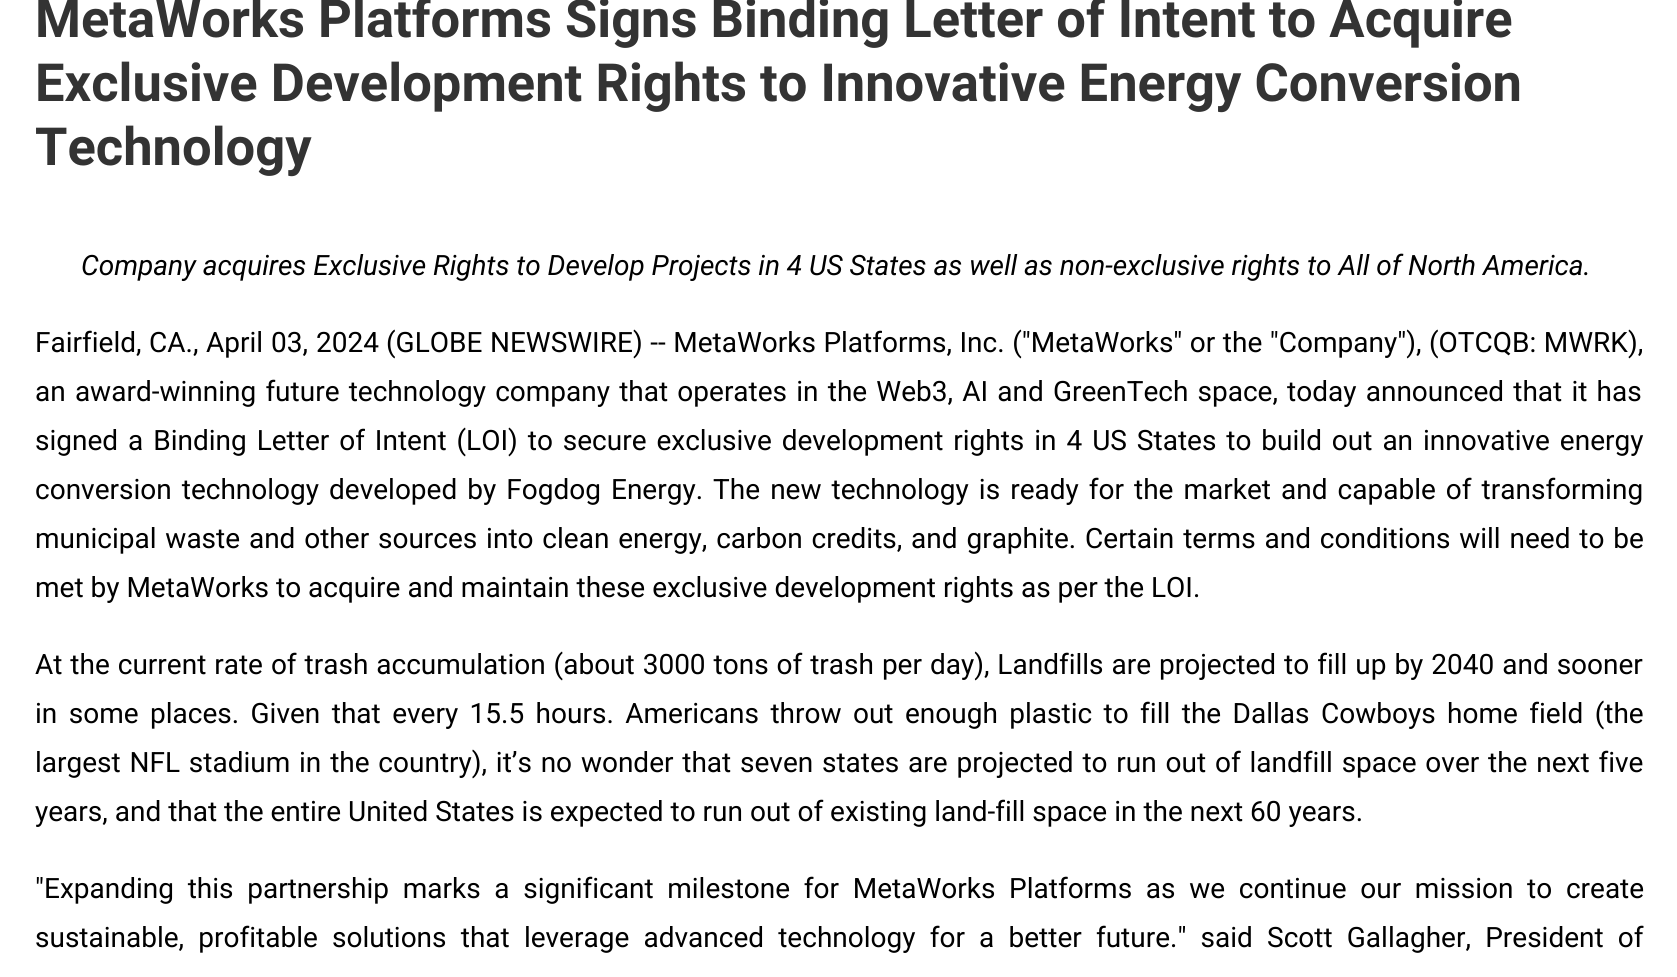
import math
import cairo

surface = cairo.ImageSurface(cairo.Format.RGB24, 1677, 977)
ctx = cairo.Context(surface)
options = cairo.FontOptions()
options.set_hint_metrics(cairo.HintMetrics.OFF)
options.set_hint_style(cairo.HintStyle.NONE)
ctx.set_font_options(options)
ctx.set_miter_limit(4)


def ink(r, g, b):
    ctx.set_source_rgb(r / 255, g / 255, b / 255)


def write(x, y, s, family, size, color, bold=False, italic=False):
    ctx.select_font_face(family, cairo.FontSlant.ITALIC if italic else cairo.FontSlant.NORMAL, cairo.FontWeight.BOLD if bold else cairo.FontWeight.NORMAL)
    ctx.set_font_size(size)
    ink(*color)
    ctx.move_to(x, y)
    ctx.show_text(s)


def write_spaced(x, y, s, letter, word):
    ctx.move_to(x, y)
    for ch in s:
        ctx.show_text(ch)
        ctx.rel_move_to(letter + word * (ch == ' '), 0)


s1 = dict(family="Roboto", size=52.5, color=(51, 51, 51), bold=True)
s2 = dict(family="Roboto", size=28, color=(0, 0, 0), italic=True)
s3 = dict(family="Roboto", size=28, color=(0, 0, 0))

ink(255, 255, 255)
ctx.paint()
write(35, 37, "MetaWorks Platforms Signs Binding Letter of Intent to Acquire", **s1)
write(35, 101, "Exclusive Development Rights to Innovative Energy Conversion", **s1)
write(35, 165, "Technology", **s1)
write(81, 275, "Company acquires Exclusive Rights to Develop Projects in 4 US States as well as non-exclusive rights to All of North America.", **s2)
ctx.select_font_face("Roboto")
write_spaced(35, 352, "Fairfield, CA., April", 0, 0.6)
write_spaced(271, 352, "03, 2024", 0, 1)
write_spaced(386, 352, "(GLOBE NEWSWIRE) -- MetaWorks Platforms, Inc. (\"MetaWorks\" or the \"Company\"), (OTCQB: MWRK),", 0, 0.6)
write_spaced(35, 401, "an award-winning future technology company that operates in the Web3, AI and GreenTech space, today announced that it has", 0, 2.25)
write_spaced(35, 450, "signed a Binding Letter of Intent (LOI) to secure exclusive development rights in 4 US States to build out an innovative energy", 0, 3)
write_spaced(35, 499, "conversion technology developed by Fogdog Energy. The new technology is ready for the market and capable of transforming", 0, 3.1)
write_spaced(35, 548, "municipal waste and other sources into clean energy, carbon credits, and graphite. Certain terms and conditions will need to be", 0, 1.9)
write(35, 597, "met by MetaWorks to acquire and maintain these exclusive development rights as per the LOI.", **s3)
write_spaced(35, 674, "At the current rate of trash accumulation (about 3000 tons of trash per day), Landfills are projected to fill up by 2040 and sooner", 0, 1)
write_spaced(35, 723, "in some places. Given that every 15.5 hours. Americans throw out enough plastic to fill the Dallas Cowboys home field (the", 0, 4.5)
write_spaced(35, 772, "largest NFL stadium in the country), it’s no wonder that seven states are projected to run out of landfill space over the next five", 0, 1.85)
write(35, 821, "years, and that the entire United States is expected to run out of existing land-fill space in the next 60 years.", **s3)
write_spaced(35, 898, "\"Expanding this partnership marks a significant milestone for MetaWorks Platforms as we continue our mission to create", 0, 6.75)
write_spaced(35, 947, "sustainable, profitable solutions that leverage advanced technology for a better future.\" said Scott Gallagher, President of", 0, 7.25)
surface.write_to_png("screenshot.png")
